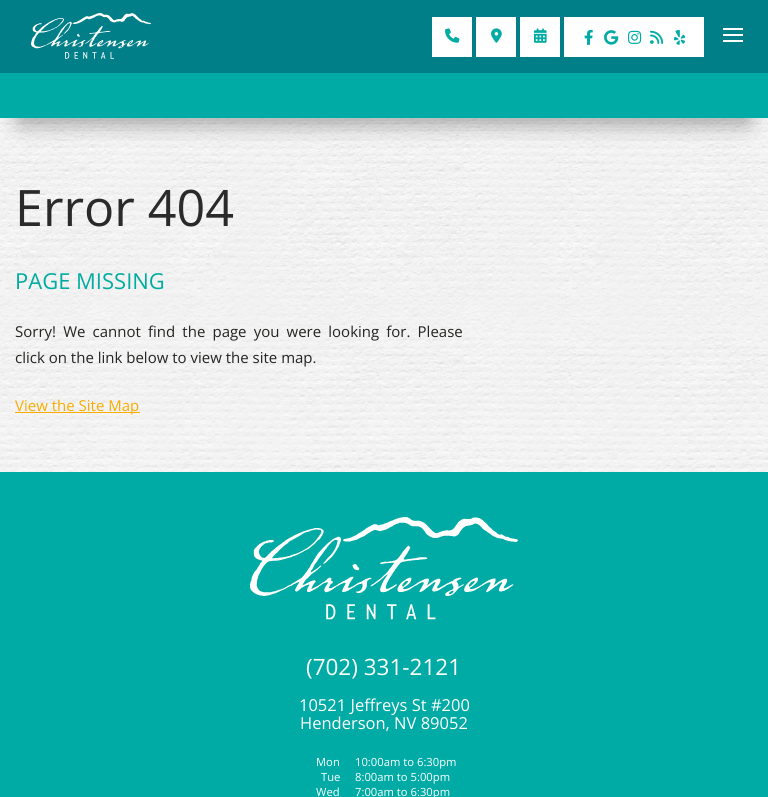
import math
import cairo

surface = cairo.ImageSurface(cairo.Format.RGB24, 768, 797)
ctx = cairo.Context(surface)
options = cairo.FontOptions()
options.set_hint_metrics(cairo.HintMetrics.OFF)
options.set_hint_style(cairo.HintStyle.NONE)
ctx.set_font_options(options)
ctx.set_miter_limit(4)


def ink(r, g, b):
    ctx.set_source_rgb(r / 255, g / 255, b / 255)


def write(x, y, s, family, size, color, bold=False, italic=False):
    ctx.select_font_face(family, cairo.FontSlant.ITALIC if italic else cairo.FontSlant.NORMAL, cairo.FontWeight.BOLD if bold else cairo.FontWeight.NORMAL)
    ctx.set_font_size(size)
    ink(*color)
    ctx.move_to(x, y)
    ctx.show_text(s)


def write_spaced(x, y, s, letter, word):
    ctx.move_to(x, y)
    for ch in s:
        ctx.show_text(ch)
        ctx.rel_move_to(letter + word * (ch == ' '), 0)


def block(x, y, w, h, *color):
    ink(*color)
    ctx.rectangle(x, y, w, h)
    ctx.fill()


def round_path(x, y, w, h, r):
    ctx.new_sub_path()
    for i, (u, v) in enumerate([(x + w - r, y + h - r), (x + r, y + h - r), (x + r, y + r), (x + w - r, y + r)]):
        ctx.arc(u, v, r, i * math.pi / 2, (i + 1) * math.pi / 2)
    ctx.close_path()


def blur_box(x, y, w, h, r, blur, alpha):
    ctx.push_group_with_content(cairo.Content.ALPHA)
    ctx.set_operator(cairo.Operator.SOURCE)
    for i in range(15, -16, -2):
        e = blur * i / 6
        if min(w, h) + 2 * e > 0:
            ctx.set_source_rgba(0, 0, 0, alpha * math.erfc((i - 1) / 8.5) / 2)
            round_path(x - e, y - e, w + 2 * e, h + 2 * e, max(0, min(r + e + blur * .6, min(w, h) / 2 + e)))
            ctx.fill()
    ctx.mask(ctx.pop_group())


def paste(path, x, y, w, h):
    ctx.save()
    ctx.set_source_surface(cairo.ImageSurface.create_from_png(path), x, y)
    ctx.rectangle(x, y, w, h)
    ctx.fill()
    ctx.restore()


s1 = dict(family="Open Sans", size=50.25, color=(42, 42, 42))
s2 = dict(family="Open Sans", size=22, color=(0, 171, 161))
s3 = dict(family="Open Sans", size=15, color=(36, 37, 34))
s4 = dict(family="Open Sans", size=15, color=(249, 172, 0))
s5 = dict(family="Open Sans", size=22.5, color=(255, 255, 255))
s6 = dict(family="Open Sans", size=16.5, color=(255, 255, 255))
s7 = dict(family="Open Sans", size=11.25, color=(255, 255, 255))

ink(255, 255, 255)
ctx.paint()
paste("pic1.png", 0, 118, 768, 354)
ink(0, 0, 0)
blur_box(15, 96, 738, 30, 15, 10, 0.3)
block(0, 0, 768, 73, 0, 127, 136)
paste("pic2.png", 31, 13, 120, 46)
block(432, 17, 40, 40, 255, 255, 255)
paste("pic3.png", 445, 28, 15, 15)
block(476, 17, 40, 40, 255, 255, 255)
paste("pic4.png", 491, 28, 11, 15)
block(520, 17, 40, 40, 255, 255, 255)
paste("pic5.png", 534, 28, 13, 15)
block(564, 17, 140, 40, 255, 255, 255)
paste("pic6.png", 584, 29, 9, 16)
paste("pic7.png", 604, 30, 15, 15)
paste("pic8.png", 628, 30, 14, 14)
paste("pic9.png", 650, 30, 14, 14)
paste("pic10.png", 674, 29, 12, 16)
block(723, 28, 20, 2, 255, 255, 255)
block(723, 34, 20, 2, 255, 255, 255)
block(723, 40, 20, 2, 255, 255, 255)
block(0, 73, 768, 45, 0, 171, 165)
write(15, 226, "Error 404", **s1)
write(15, 289, "PAGE MISSING", **s2)
ctx.set_font_size(15)
ink(36, 37, 34)
write_spaced(15, 337, "Sorry! We cannot find the page you were looking for. Please", 0, 3.25)
write(15, 363, "click on the link below to view the site map.", **s3)
block(15, 412, 125, 1, 249, 172, 0)
write(15, 411, "View the Site Map", **s4)
block(0, 472, 768, 325, 0, 171, 165)
paste("pic11.png", 250, 517, 268, 103)
write(306, 675, "(702) 331-2121", **s5)
write(299, 711, "10521 Jeffreys St #200", **s6)
write(300, 729, "Henderson, NV 89052", **s6)
write(316, 766, "Mon", **s7)
write(355, 766, "10:00am to 6:30pm", **s7)
write(321, 781, "Tue", **s7)
write(355, 781, "8:00am to 5:00pm", **s7)
write(316, 796, "Wed", **s7)
write(355, 796, "7:00am to 6:30pm", **s7)
surface.write_to_png("screenshot.png")
